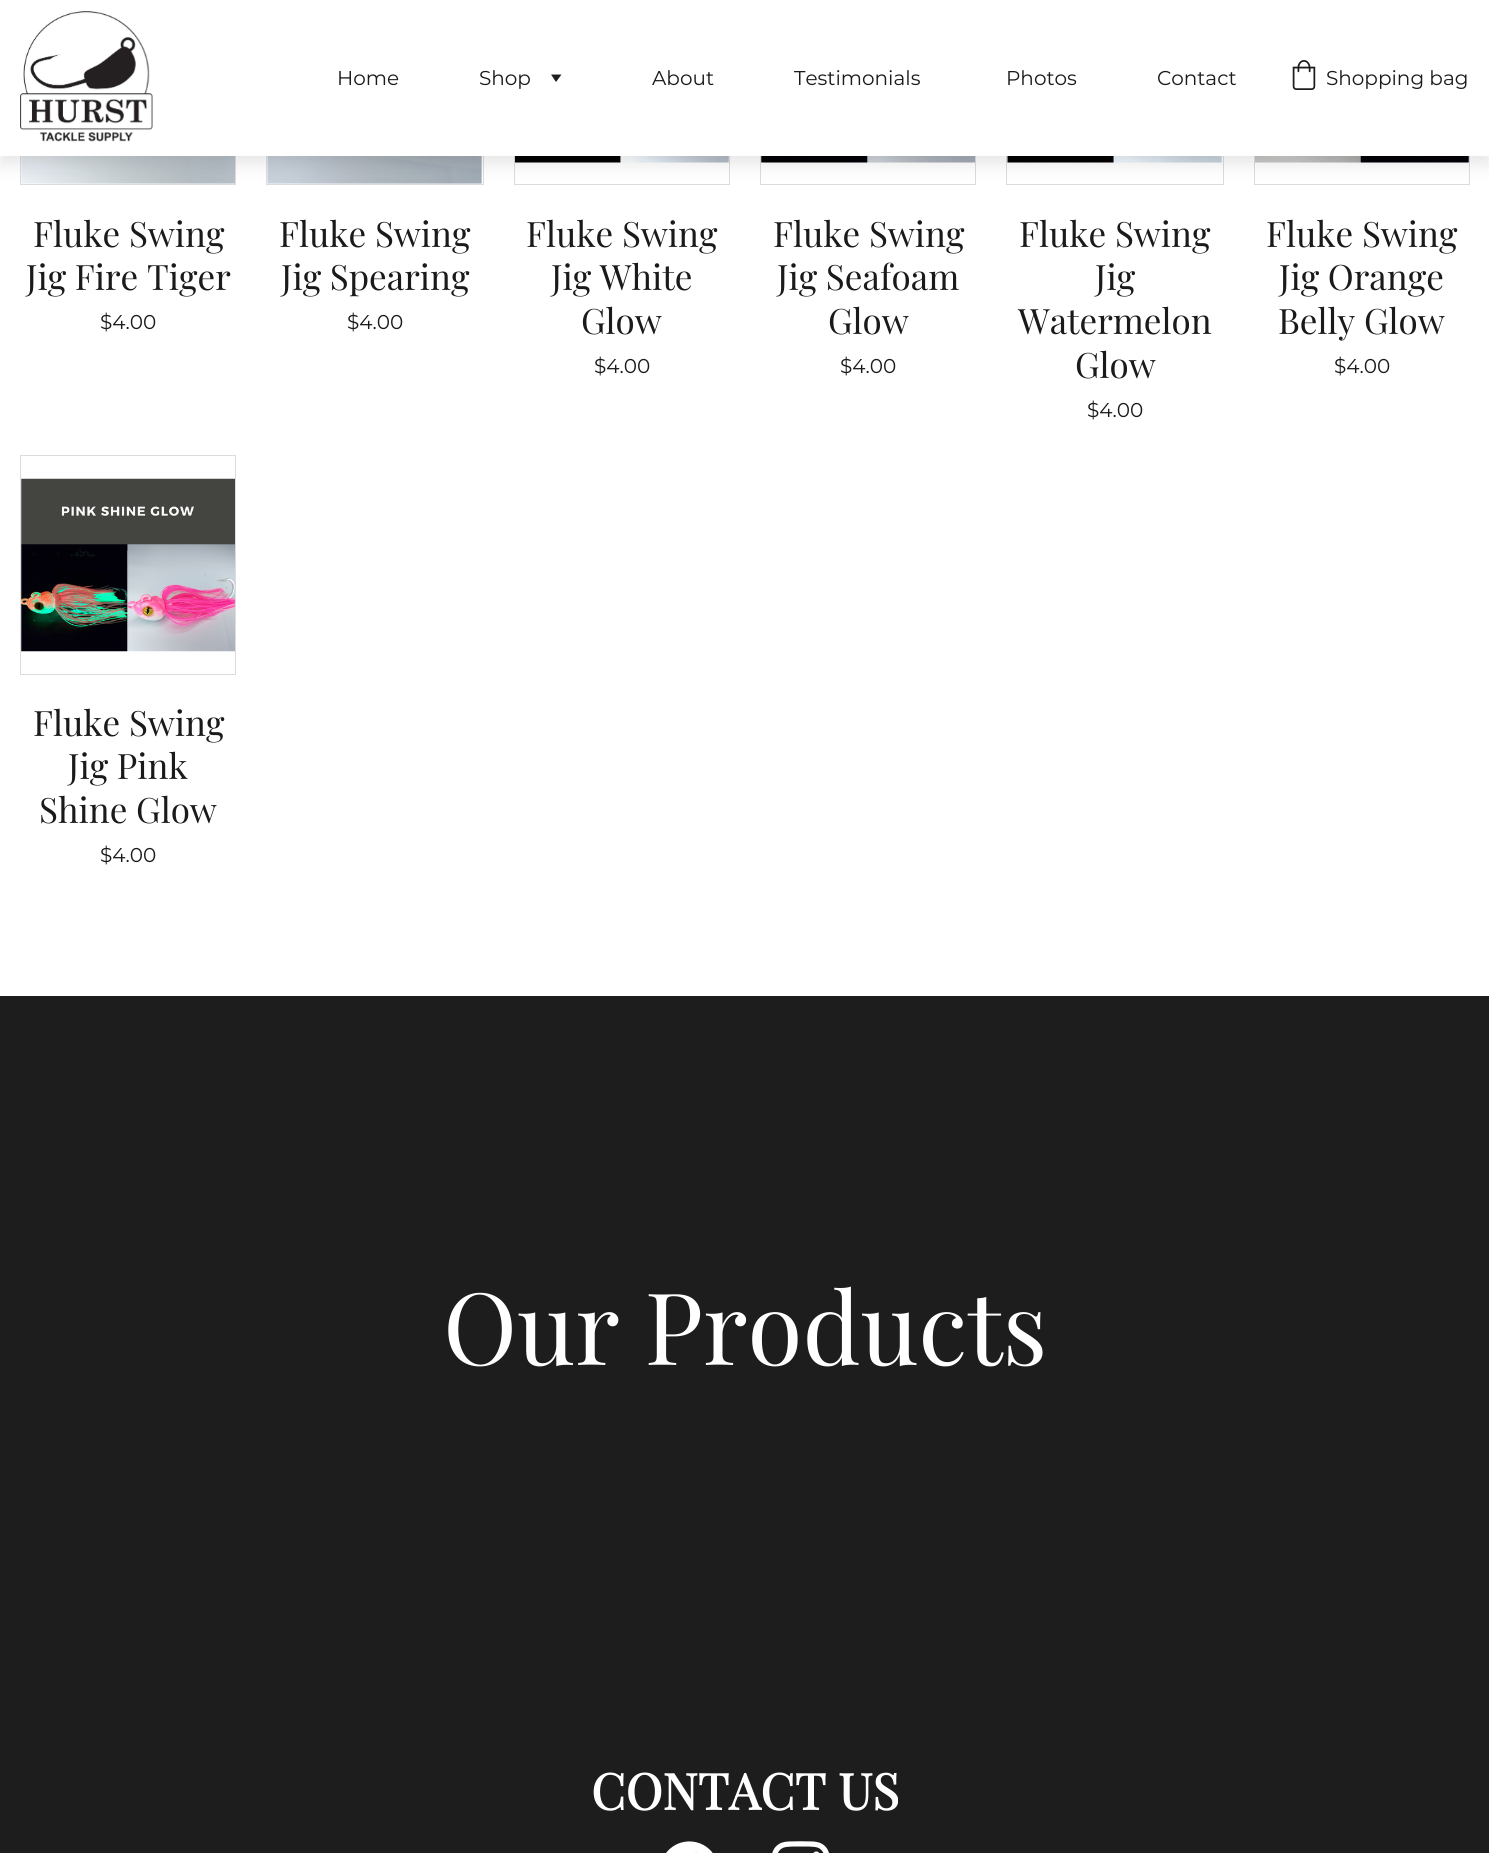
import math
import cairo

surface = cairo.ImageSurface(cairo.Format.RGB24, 1489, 1853)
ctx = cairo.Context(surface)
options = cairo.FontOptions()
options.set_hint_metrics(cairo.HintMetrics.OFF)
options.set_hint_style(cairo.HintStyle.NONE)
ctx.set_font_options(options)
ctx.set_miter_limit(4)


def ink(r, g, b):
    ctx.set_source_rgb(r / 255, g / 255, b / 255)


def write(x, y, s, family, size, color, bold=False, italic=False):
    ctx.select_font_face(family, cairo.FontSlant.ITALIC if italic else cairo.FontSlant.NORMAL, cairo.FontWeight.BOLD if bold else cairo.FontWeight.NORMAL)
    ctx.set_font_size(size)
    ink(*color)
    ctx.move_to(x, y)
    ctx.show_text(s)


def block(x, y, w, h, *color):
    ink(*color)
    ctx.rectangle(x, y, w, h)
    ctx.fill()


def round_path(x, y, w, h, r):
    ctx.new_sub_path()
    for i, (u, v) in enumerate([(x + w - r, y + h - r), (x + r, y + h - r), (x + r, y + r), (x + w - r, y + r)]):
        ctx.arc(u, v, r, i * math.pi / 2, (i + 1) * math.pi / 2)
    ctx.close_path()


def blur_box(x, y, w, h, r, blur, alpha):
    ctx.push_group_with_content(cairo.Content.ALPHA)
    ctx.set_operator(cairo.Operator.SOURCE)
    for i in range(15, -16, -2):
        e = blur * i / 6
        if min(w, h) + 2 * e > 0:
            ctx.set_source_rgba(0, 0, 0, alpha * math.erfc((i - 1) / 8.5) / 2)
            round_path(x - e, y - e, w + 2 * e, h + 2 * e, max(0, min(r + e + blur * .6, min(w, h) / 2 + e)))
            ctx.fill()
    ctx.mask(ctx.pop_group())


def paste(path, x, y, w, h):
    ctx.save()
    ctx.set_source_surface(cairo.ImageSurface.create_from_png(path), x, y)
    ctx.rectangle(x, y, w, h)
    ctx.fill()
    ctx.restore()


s1 = dict(family="Montserrat Thin", size=20, color=(26, 26, 26))
s2 = dict(family="Playfair Display", size=35, color=(26, 26, 26))
s3 = dict(family="Playfair Display", size=100, color=(255, 255, 255))
s4 = dict(family="Playfair Display", size=50, color=(255, 255, 255), bold=True)

ink(255, 255, 255)
ctx.paint()
ctx.rectangle(20.5, -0.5, 215, 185)
ink(218, 220, 224)
ctx.set_line_width(1)
ctx.stroke()
paste("pic3.png", 21, 156, 214, 28)
ctx.rectangle(266.5, -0.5, 217, 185)
ctx.stroke()
paste("pic4.png", 267, 156, 215, 28)
ctx.rectangle(514.5, -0.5, 215, 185)
ctx.stroke()
paste("pic5.png", 515, 156, 214, 7)
ctx.rectangle(760.5, -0.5, 215, 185)
ctx.stroke()
paste("pic6.png", 761, 156, 214, 7)
ctx.rectangle(1006.5, -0.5, 217, 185)
ctx.stroke()
paste("pic7.png", 1007, 156, 215, 7)
ctx.rectangle(1254.5, -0.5, 215, 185)
ctx.stroke()
paste("pic8.png", 1255, 156, 214, 7)
ink(0, 0, 0)
blur_box(0, 8, 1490, 156, 0, 9, 0.1)
block(0, 0, 1489, 156, 255, 255, 255)
paste("pic1.png", 20, 11, 133, 131)
write(337, 85, "Home", **s1)
write(479, 85, "Shop", **s1)
ink(29, 29, 30)
ctx.new_path()
ctx.move_to(556, 82)
ctx.line_to(551, 74.5)
ctx.line_to(561.5, 74.5)
ctx.close_path()
ctx.fill()
write(652, 85, "About", **s1)
write(794, 85, "Testimonials", **s1)
write(1006, 85, "Photos", **s1)
write(1157, 85, "Contact", **s1)
paste("pic2.png", 1292, 60, 24, 30)
write(1326, 85, "Shopping bag", **s1)
write(33, 247, "Fluke Swing", **s2)
write(26, 290, "Jig Fire Tiger", **s2)
write(100, 329, "$4.00", **s1)
write(279, 247, "Fluke Swing", **s2)
write(281, 290, "Jig Spearing", **s2)
write(347, 329, "$4.00", **s1)
write(526, 247, "Fluke Swing", **s2)
write(551, 290, "Jig White", **s2)
write(581, 334, "Glow", **s2)
write(594, 373, "$4.00", **s1)
write(773, 247, "Fluke Swing", **s2)
write(777, 290, "Jig Seafoam", **s2)
write(828, 334, "Glow", **s2)
write(840, 373, "$4.00", **s1)
write(1019, 247, "Fluke Swing", **s2)
write(1095, 290, "Jig", **s2)
write(1018, 334, "Watermelon", **s2)
write(1075, 378, "Glow", **s2)
write(1087, 417, "$4.00", **s1)
write(1266, 247, "Fluke Swing", **s2)
write(1279, 290, "Jig Orange", **s2)
write(1278, 334, "Belly Glow", **s2)
write(1334, 373, "$4.00", **s1)
ctx.rectangle(20.5, 455.5, 215, 219)
ink(218, 220, 224)
ctx.stroke()
paste("pic9.png", 21, 478, 214, 174)
write(33, 736, "Fluke Swing", **s2)
write(68, 779, "Jig Pink", **s2)
write(39, 823, "Shine Glow", **s2)
write(100, 862, "$4.00", **s1)
block(0, 996, 1489, 857, 29, 29, 30)
write(443, 1365, "Our Products", **s3)
write(591, 1810, "CONTACT US", **s4)
paste("pic10.png", 666, 1841, 47, 12)
paste("pic11.png", 772, 1841, 57, 12)
surface.write_to_png("screenshot.png")
